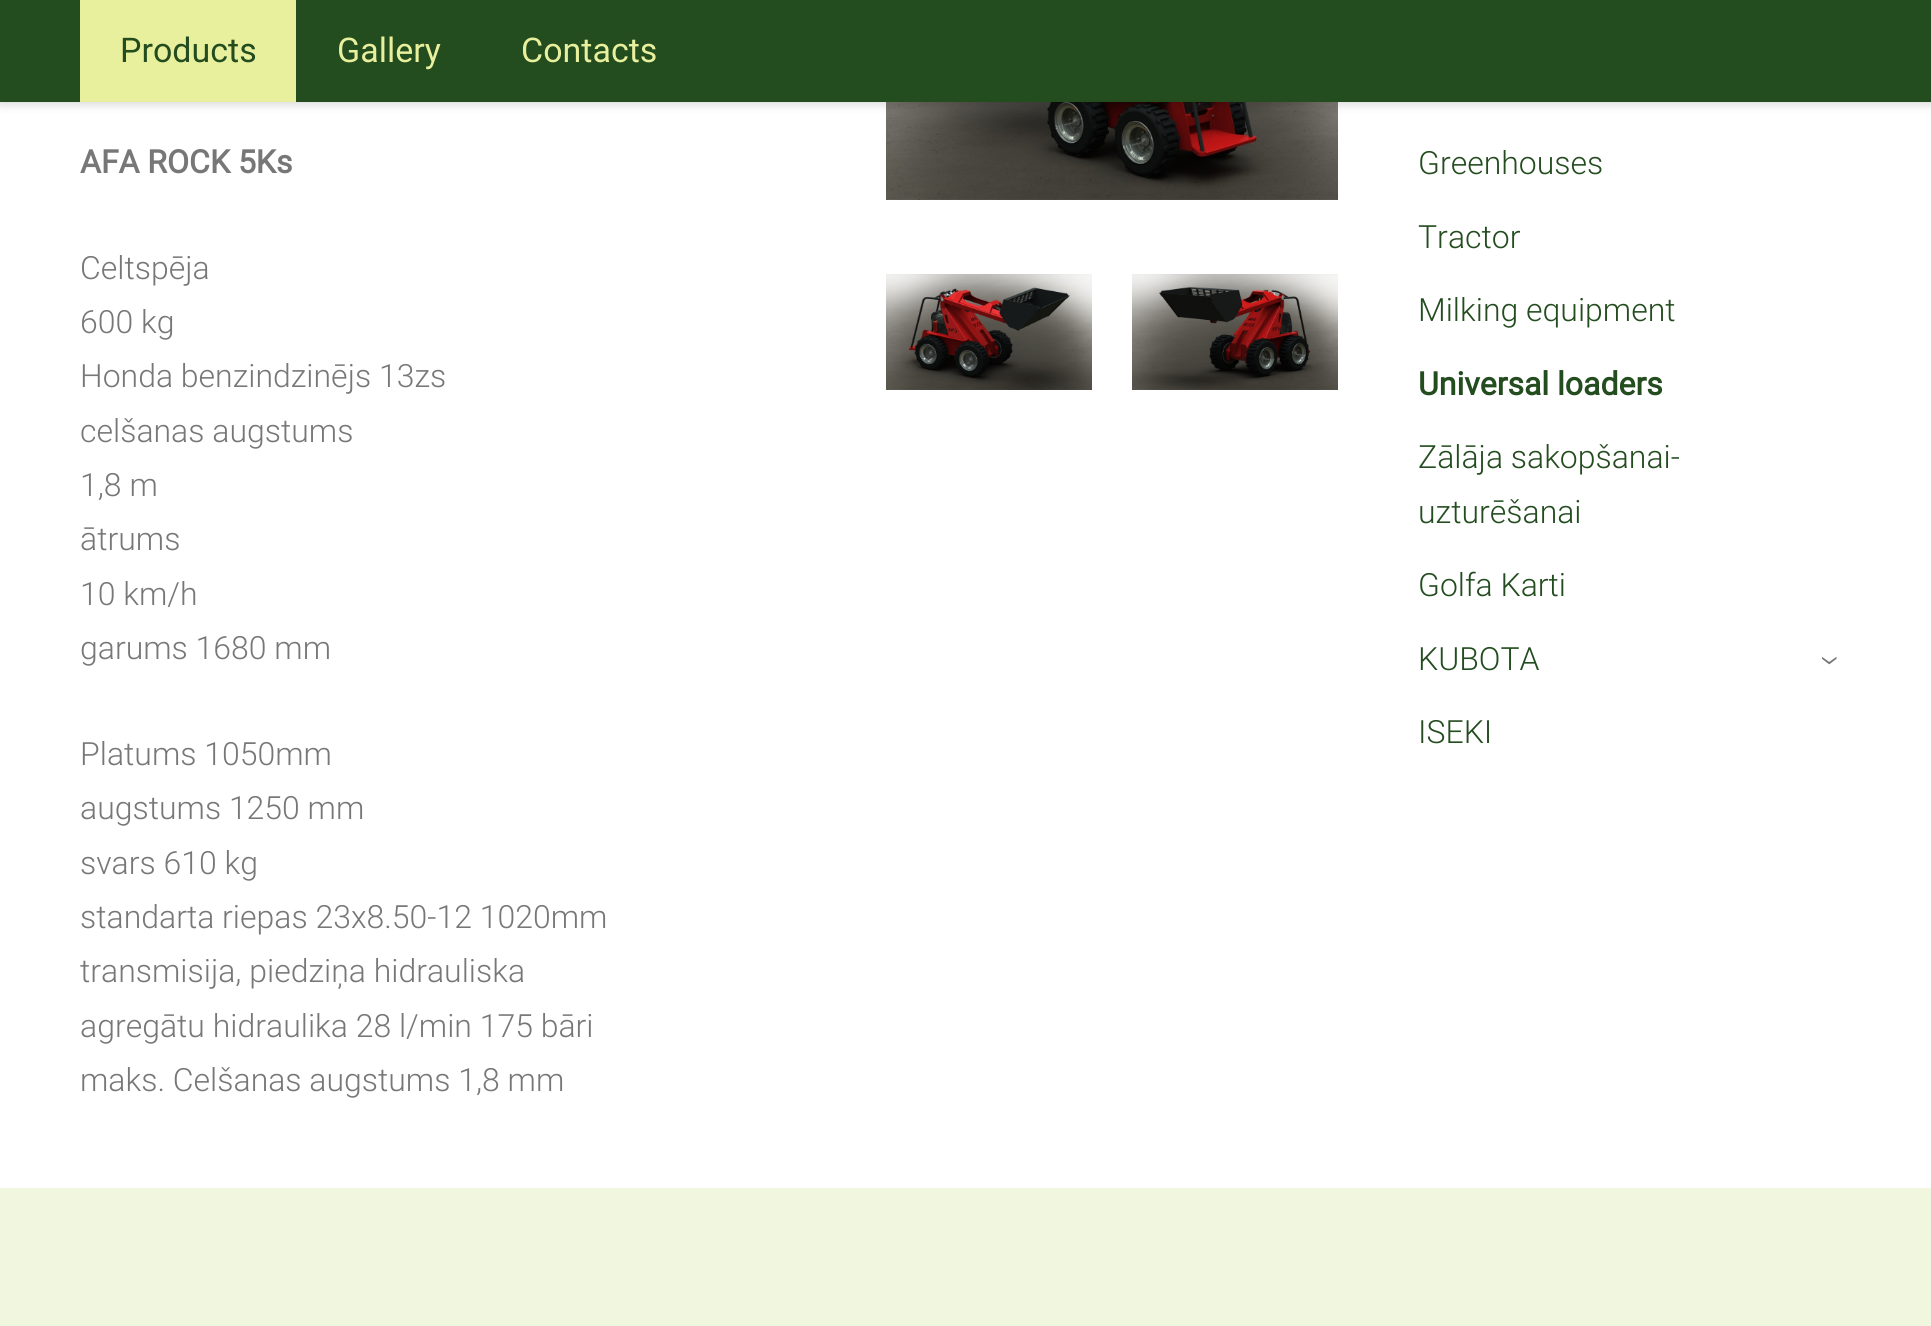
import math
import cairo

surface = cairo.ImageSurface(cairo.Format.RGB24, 1931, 1326)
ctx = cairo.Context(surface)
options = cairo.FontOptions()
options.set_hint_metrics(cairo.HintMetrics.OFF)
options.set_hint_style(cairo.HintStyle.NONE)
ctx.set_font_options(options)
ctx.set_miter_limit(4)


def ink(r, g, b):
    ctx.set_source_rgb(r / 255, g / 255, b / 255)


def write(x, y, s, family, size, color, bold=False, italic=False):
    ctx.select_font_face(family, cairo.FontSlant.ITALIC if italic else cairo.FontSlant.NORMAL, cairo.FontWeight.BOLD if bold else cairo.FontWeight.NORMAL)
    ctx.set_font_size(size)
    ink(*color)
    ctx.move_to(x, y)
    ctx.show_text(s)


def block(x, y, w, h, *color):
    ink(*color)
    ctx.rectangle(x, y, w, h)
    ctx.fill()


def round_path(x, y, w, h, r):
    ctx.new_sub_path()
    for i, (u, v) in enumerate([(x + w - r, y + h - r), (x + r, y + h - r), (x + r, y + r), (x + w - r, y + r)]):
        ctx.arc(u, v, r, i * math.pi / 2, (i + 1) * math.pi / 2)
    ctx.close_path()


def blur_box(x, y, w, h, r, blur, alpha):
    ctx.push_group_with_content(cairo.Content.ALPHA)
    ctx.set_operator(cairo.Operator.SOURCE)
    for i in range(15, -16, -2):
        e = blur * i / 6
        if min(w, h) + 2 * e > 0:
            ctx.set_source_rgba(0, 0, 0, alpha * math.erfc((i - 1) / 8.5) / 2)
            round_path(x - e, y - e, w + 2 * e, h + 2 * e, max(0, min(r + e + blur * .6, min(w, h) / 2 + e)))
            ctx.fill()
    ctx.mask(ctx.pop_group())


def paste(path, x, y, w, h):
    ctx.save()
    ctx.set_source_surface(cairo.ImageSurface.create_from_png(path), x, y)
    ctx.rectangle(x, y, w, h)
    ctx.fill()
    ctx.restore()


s1 = dict(family="Roboto", size=34, color=(35, 76, 31))
s2 = dict(family="Roboto", size=34, color=(233, 240, 157))
s3 = dict(family="Roboto", size=32, color=(119, 119, 119), bold=True)
s4 = dict(family="Roboto Light", size=32, color=(119, 119, 119))
s5 = dict(family="Roboto Light", size=32, color=(35, 76, 31))
s6 = dict(family="Roboto", size=32, color=(35, 76, 31), bold=True)
s7 = dict(family="Roboto Light", size=38, color=(119, 119, 119))

ink(240, 247, 222)
ctx.paint()
block(0, 102, 1931, 1086, 255, 255, 255)
paste("pic1.png", 886, 102, 452, 98)
ink(0, 0, 0)
blur_box(0, 2, 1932, 102, 0, 5, 0.17)
block(0, 0, 1931, 102, 35, 76, 31)
block(80, 0, 216, 102, 233, 240, 157)
write(120, 62, "Products", **s1)
write(337, 62, "Gallery", **s2)
write(521, 62, "Contacts", **s2)
write(80, 173, "AFA ROCK 5Ks", **s3)
write(80, 279, "Celtspēja", **s4)
write(80, 333, "600 kg", **s4)
write(80, 387, "Honda benzindzinējs 13zs", **s4)
write(80, 442, "celšanas augstums", **s4)
write(80, 496, "1,8 m", **s4)
write(80, 550, "ātrums", **s4)
write(80, 605, "10 km/h", **s4)
write(80, 659, "garums 1680 mm", **s4)
write(80, 765, "Platums 1050mm", **s4)
write(80, 819, "augstums 1250 mm", **s4)
write(80, 874, "svars 610 kg", **s4)
write(80, 928, "standarta riepas 23x8.50-12 1020mm", **s4)
write(80, 982, "transmisija, piedziņa hidrauliska", **s4)
write(80, 1037, "agregātu hidraulika 28 l/min 175 bāri", **s4)
write(80, 1091, "maks. Celšanas augstums 1,8 mm", **s4)
paste("pic2.png", 886, 274, 206, 116)
paste("pic3.png", 1132, 274, 206, 116)
write(1418, 174, "Greenhouses", **s5)
write(1418, 248, "Tractor", **s5)
write(1418, 321, "Milking equipment", **s5)
write(1418, 395, "Universal loaders", **s6)
write(1418, 468, "Zālāja sakopšanai-", **s5)
write(1418, 523, "uzturēšanai", **s5)
write(1418, 596, "Golfa Karti", **s5)
write(1418, 670, "KUBOTA", **s5)
ctx.save()
ctx.translate(1819, 655)
ctx.rotate(90 * math.pi / 180)
write(0, 0, "›", **s7)
ctx.restore()
write(1418, 743, "ISEKI", **s5)
surface.write_to_png("screenshot.png")
